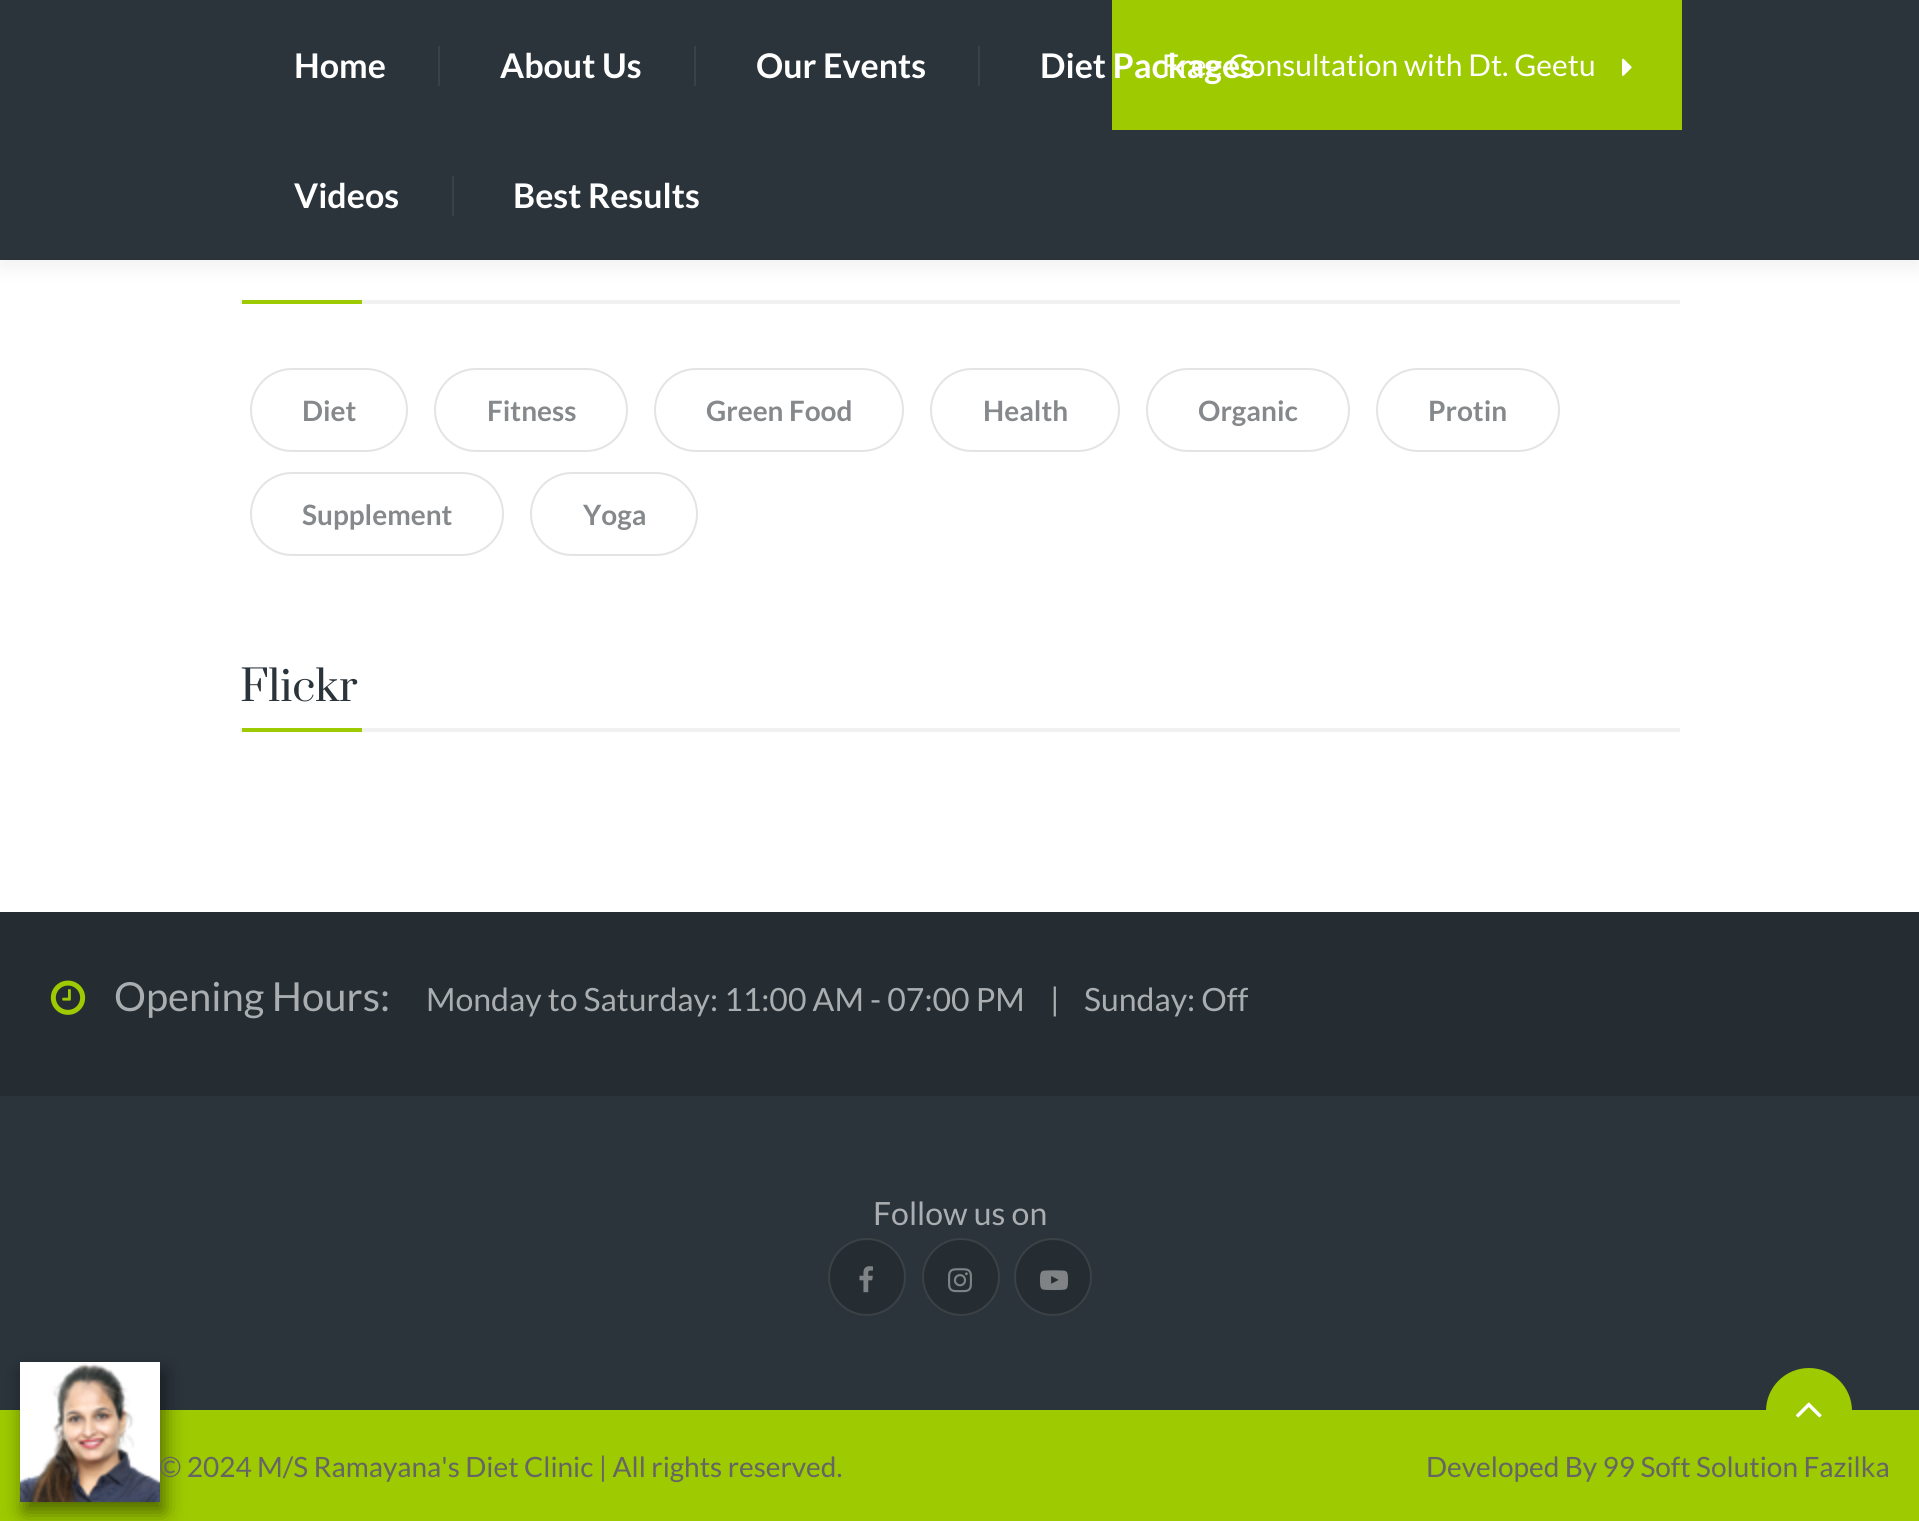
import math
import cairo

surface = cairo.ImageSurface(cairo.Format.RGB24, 1919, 1521)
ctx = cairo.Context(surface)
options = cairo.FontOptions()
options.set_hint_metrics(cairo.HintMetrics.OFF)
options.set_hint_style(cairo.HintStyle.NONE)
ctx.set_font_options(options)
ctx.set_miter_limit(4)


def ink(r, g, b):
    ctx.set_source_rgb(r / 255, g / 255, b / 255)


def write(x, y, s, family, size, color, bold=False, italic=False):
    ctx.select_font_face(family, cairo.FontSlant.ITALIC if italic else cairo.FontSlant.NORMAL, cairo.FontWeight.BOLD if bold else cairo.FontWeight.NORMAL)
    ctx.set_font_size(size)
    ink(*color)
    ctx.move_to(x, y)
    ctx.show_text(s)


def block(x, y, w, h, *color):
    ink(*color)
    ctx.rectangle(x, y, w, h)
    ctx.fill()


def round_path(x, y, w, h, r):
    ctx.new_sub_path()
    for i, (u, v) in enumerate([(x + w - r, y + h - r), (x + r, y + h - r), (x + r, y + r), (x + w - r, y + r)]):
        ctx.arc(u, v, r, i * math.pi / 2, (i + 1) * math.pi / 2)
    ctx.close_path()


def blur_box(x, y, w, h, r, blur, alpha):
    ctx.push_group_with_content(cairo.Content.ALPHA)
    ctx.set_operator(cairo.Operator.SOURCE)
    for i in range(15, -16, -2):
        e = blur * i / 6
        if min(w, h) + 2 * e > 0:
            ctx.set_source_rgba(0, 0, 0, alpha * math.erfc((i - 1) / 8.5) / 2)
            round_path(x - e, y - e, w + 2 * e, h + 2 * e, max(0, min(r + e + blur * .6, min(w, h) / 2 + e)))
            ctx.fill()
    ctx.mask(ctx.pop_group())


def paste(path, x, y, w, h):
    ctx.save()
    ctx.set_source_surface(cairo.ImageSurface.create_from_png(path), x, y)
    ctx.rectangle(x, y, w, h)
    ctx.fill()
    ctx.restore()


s1 = dict(family="Lato", size=28, color=(101, 101, 101))
s2 = dict(family="Lato", size=34, color=(255, 255, 255), bold=True)
s3 = dict(family="Lato", size=30, color=(255, 255, 255))
s4 = dict(family="Lato", size=28, color=(134, 137, 140), bold=True)
s5 = dict(family="Prata", size=42, color=(43, 52, 59))
s6 = dict(family="Lato", size=40, color=(170, 174, 177))
s7 = dict(family="Lato", size=32, color=(170, 174, 177))

ink(255, 255, 255)
ctx.paint()
block(0, 1096, 1919, 314, 43, 52, 59)
block(0, 1410, 1919, 111, 157, 202, 0)
ink(0, 0, 0)
blur_box(24, 1372, 140, 140, 0, 10, 0.5)
write(159, 1477, "© 2024 M/S Ramayana's Diet Clinic | All rights reserved.", **s1)
paste("pic1.png", 20, 1362, 140, 140)
ink(0, 0, 0)
blur_box(0, 8, 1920, 260, 0, 10, 0.06)
block(0, 0, 1919, 260, 43, 52, 59)
write(294, 78, "Home", **s2)
block(438, 46, 2, 40, 58, 66, 73)
write(500, 78, "About Us", **s2)
block(694, 46, 2, 40, 58, 66, 73)
write(756, 78, "Our Events", **s2)
block(978, 46, 2, 40, 58, 66, 73)
block(1112, 0, 570, 130, 157, 202, 0)
write(1162, 76, "Free Consultation with Dt. Geetu", **s3)
write(1040, 78, "Diet Packages", **s2)
write(294, 208, "Videos", **s2)
block(452, 176, 2, 40, 58, 66, 73)
write(513, 208, "Best Results", **s2)
paste("pic2.png", 1622, 58, 10, 18)
block(240, 300, 1440, 4, 241, 241, 241)
block(242, 300, 120, 4, 157, 202, 0)
round_path(251, 369, 156, 82, 41)
ink(228, 228, 228)
ctx.stroke()
write(302, 421, "Diet", **s4)
round_path(435, 369, 192, 82, 41)
ink(228, 228, 228)
ctx.stroke()
write(487, 421, "Fitness", **s4)
round_path(655, 369, 248, 82, 41)
ink(228, 228, 228)
ctx.stroke()
write(706, 421, "Green Food", **s4)
round_path(931, 369, 188, 82, 41)
ink(228, 228, 228)
ctx.stroke()
write(983, 421, "Health", **s4)
round_path(1147, 369, 202, 82, 41)
ink(228, 228, 228)
ctx.stroke()
write(1198, 421, "Organic", **s4)
round_path(1377, 369, 182, 82, 41)
ink(228, 228, 228)
ctx.stroke()
write(1428, 421, "Protin", **s4)
round_path(251, 473, 252, 82, 41)
ink(228, 228, 228)
ctx.stroke()
write(302, 525, "Supplement", **s4)
round_path(531, 473, 166, 82, 41)
ink(228, 228, 228)
ctx.stroke()
write(583, 525, "Yoga", **s4)
block(240, 728, 1440, 4, 241, 241, 241)
write(240, 701, "Flickr", **s5)
block(242, 728, 120, 4, 157, 202, 0)
block(0, 912, 1919, 184, 37, 45, 50)
paste("pic3.png", 50, 980, 36, 35)
write(114, 1011, "Opening Hours:", **s6)
write(426, 1011, "Monday to Saturday: 11:00 AM - 07:00 PM", **s7)
write(1050, 1011, "|", **s7)
write(1084, 1011, "Sunday: Off", **s7)
write(873, 1225, "Follow us on", **s7)
ink(37, 45, 50)
ctx.new_path()
ctx.arc(867, 1277, 39, 0, 2 * math.pi)
ctx.fill()
ctx.arc(867, 1277, 38, 0, 2 * math.pi)
ctx.set_source_rgba(1, 1, 1, 0.1)
ctx.stroke()
paste("pic4.png", 859, 1266, 14, 27)
ink(37, 45, 50)
ctx.arc(961, 1277, 39, 0, 2 * math.pi)
ctx.fill()
ctx.arc(961, 1277, 38, 0, 2 * math.pi)
ctx.set_source_rgba(1, 1, 1, 0.1)
ctx.stroke()
paste("pic5.png", 948, 1268, 24, 25)
ink(37, 45, 50)
ctx.arc(1053, 1277, 39, 0, 2 * math.pi)
ctx.fill()
ctx.arc(1053, 1277, 38, 0, 2 * math.pi)
ctx.set_source_rgba(1, 1, 1, 0.1)
ctx.stroke()
paste("pic6.png", 1040, 1270, 28, 21)
write(1426, 1477, "Developed By 99 Soft Solution Fazilka", **s1)
ink(157, 202, 0)
ctx.new_path()
ctx.arc(1809, 1411, 43, 0, 2 * math.pi)
ctx.fill()
paste("pic7.png", 1796, 1402, 26, 16)
surface.write_to_png("screenshot.png")
